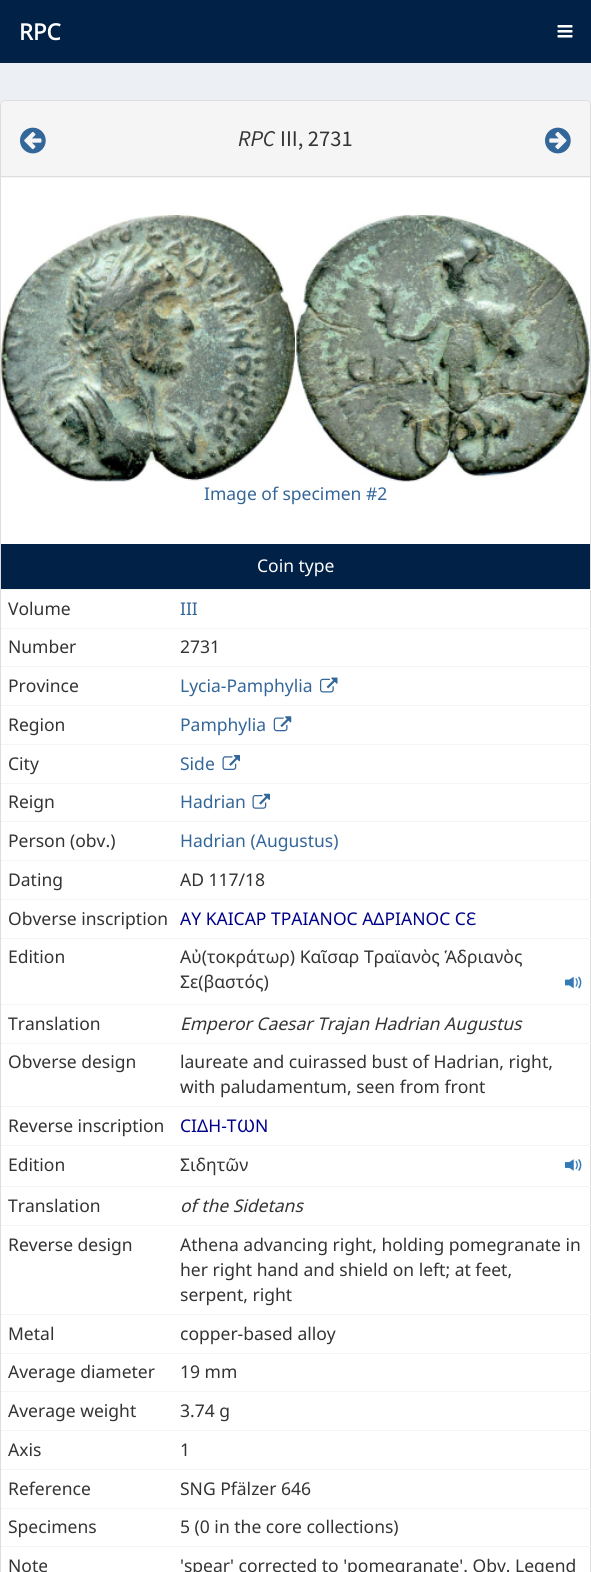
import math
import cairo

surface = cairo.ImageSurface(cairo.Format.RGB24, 591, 1572)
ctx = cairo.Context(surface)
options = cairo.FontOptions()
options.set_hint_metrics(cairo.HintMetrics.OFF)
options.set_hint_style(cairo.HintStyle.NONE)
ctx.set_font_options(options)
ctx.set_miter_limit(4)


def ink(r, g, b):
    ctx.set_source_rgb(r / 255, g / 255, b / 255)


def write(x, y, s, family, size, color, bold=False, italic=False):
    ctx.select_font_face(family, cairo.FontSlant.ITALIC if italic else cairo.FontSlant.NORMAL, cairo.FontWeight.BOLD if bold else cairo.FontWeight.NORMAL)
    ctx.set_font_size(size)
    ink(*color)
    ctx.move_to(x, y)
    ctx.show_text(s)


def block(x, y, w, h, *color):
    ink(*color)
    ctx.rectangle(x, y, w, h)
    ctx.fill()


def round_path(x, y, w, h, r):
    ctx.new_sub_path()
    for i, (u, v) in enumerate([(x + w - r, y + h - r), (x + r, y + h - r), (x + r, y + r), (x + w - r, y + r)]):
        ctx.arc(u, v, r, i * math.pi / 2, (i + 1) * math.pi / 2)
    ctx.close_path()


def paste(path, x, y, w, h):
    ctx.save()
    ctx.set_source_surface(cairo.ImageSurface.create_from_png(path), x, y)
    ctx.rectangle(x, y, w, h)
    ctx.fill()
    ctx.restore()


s1 = dict(family="Noto Sans", size=22.5, color=(255, 255, 255), bold=True)
s2 = dict(family="Source Sans Pro", size=22.5, color=(51, 51, 51), italic=True)
s3 = dict(family="Source Sans Pro", size=22.5, color=(51, 51, 51))
s4 = dict(family="Noto Sans", size=17.5, color=(51, 102, 153))
s5 = dict(family="Noto Sans", size=17.5, color=(255, 255, 255))
s6 = dict(family="Noto Sans", size=17.5, color=(51, 51, 51))
s7 = dict(family="Noto Sans", size=17.5, color=(0, 0, 139))
s8 = dict(family="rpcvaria", size=17.5, color=(0, 0, 139))
s9 = dict(family="Noto Sans", size=17.5, color=(51, 51, 51), italic=True)

ink(236, 240, 245)
ctx.paint()
block(0, 0, 591, 63, 1, 33, 71)
write(19, 40, "RPC", **s1)
paste("pic1.png", 557, 25, 16, 13)
round_path(0.5, 100.5, 590, 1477, 4.5)
ctx.fill_preserve()
ink(221, 221, 221)
ctx.set_line_width(1)
ctx.stroke()
ink(245, 245, 245)
ctx.new_path()
ctx.move_to(5, 101)
ctx.line_to(586, 101)
ctx.curve_to(588, 101, 590, 103, 590, 105)
ctx.line_to(590, 178)
ctx.line_to(1, 178)
ctx.line_to(1, 105)
ctx.curve_to(1, 103, 3, 101, 5, 101)
ctx.close_path()
ctx.fill()
block(1, 176, 589, 1, 221, 221, 221)
paste("pic2.png", 20, 127, 26, 27)
write(238, 146, "RPC", **s2)
write(280, 146, "III, 2731", **s3)
paste("pic3.png", 545, 127, 26, 27)
paste("pic4.png", 1, 215, 294, 267)
paste("pic5.png", 296, 215, 294, 267)
write(204, 500, "Image of specimen #2", **s4)
block(1, 544, 589, 45, 1, 33, 71)
write(257, 572, "Coin type", **s5)
write(8, 615, "Volume", **s6)
block(1, 589, 590, 1, 244, 244, 244)
write(180, 615, "III", **s4)
write(8, 653, "Number", **s6)
block(1, 628, 590, 1, 244, 244, 244)
write(180, 653, "2731", **s6)
write(8, 692, "Province", **s6)
block(1, 666, 590, 1, 244, 244, 244)
write(180, 692, "Lycia-Pamphylia", **s4)
paste("pic6.png", 320, 677, 18, 16)
write(8, 731, "Region", **s6)
block(1, 705, 590, 1, 244, 244, 244)
write(180, 731, "Pamphylia", **s4)
paste("pic7.png", 273, 716, 19, 16)
write(8, 770, "City", **s6)
block(1, 744, 590, 1, 244, 244, 244)
write(180, 770, "Side", **s4)
paste("pic8.png", 222, 755, 18, 15)
write(8, 808, "Reign", **s6)
block(1, 783, 590, 1, 244, 244, 244)
write(180, 808, "Hadrian", **s4)
paste("pic9.png", 252, 793, 18, 16)
write(8, 847, "Person (obv.)", **s6)
block(1, 821, 590, 1, 244, 244, 244)
write(180, 847, "Hadrian (Augustus)", **s4)
write(8, 886, "Dating", **s6)
block(1, 860, 590, 1, 244, 244, 244)
write(180, 886, "AD 117/18", **s6)
write(8, 925, "Obverse inscription", **s6)
block(1, 899, 590, 1, 244, 244, 244)
write(180, 925, "ΑΥ ΚΑΙϹΑΡ ΤΡΑΙΑΝΟϹ ΑΔΡΙΑΝΟϹ Ϲ", **s7)
write(466, 925, "Ε", **s8)
write(8, 963, "Edition", **s6)
block(1, 938, 590, 1, 244, 244, 244)
write(180, 963, "Αὐ(τοκράτωρ) Καῖσαρ Τραϊανὸς Ἁδριανὸς", **s6)
write(180, 988, "Σε(βαστός)", **s6)
paste("pic10.png", 565, 976, 17, 13)
write(8, 1030, "Translation", **s6)
block(1, 1004, 590, 1, 244, 244, 244)
write(180, 1030, "Emperor Caesar Trajan Hadrian Augustus", **s9)
write(8, 1068, "Obverse design", **s6)
block(1, 1043, 590, 1, 244, 244, 244)
write(180, 1068, "laureate and cuirassed bust of Hadrian, right,", **s6)
write(180, 1093, "with paludamentum, seen from front", **s6)
write(8, 1132, "Reverse inscription", **s6)
block(1, 1106, 590, 1, 244, 244, 244)
write(180, 1132, "ϹΙΔΗ-Τ", **s7)
write(237, 1132, "ω", **s8)
write(255, 1132, "Ν", **s7)
write(8, 1171, "Edition", **s6)
block(1, 1145, 590, 1, 244, 244, 244)
write(180, 1171, "Σιδητῶν", **s6)
paste("pic11.png", 565, 1159, 17, 12)
write(8, 1212, "Translation", **s6)
block(1, 1186, 590, 1, 244, 244, 244)
write(180, 1212, "of the Sidetans", **s9)
write(8, 1251, "Reverse design", **s6)
block(1, 1225, 590, 1, 244, 244, 244)
write(180, 1251, "Athena advancing right, holding pomegranate in", **s6)
write(180, 1276, "her right hand and shield on left; at feet,", **s6)
write(180, 1301, "serpent, right", **s6)
write(8, 1340, "Metal", **s6)
block(1, 1314, 590, 1, 244, 244, 244)
write(180, 1340, "copper-based alloy", **s6)
write(8, 1378, "Average diameter", **s6)
block(1, 1353, 590, 1, 244, 244, 244)
write(180, 1378, "19 mm", **s6)
write(8, 1417, "Average weight", **s6)
block(1, 1391, 590, 1, 244, 244, 244)
write(180, 1417, "3.74 g", **s6)
write(8, 1456, "Axis", **s6)
block(1, 1430, 590, 1, 244, 244, 244)
write(180, 1456, "1", **s6)
write(8, 1495, "Reference", **s6)
block(1, 1469, 590, 1, 244, 244, 244)
write(180, 1495, "SNG Pfälzer 646", **s6)
write(8, 1533, "Specimens", **s6)
block(1, 1508, 590, 1, 244, 244, 244)
write(180, 1533, "5 (0 in the core collections)", **s6)
write(8, 1572, "Note", **s6)
block(1, 1546, 590, 1, 244, 244, 244)
write(180, 1572, "'spear' corrected to 'pomegranate'. Obv. Legend", **s6)
surface.write_to_png("screenshot.png")
